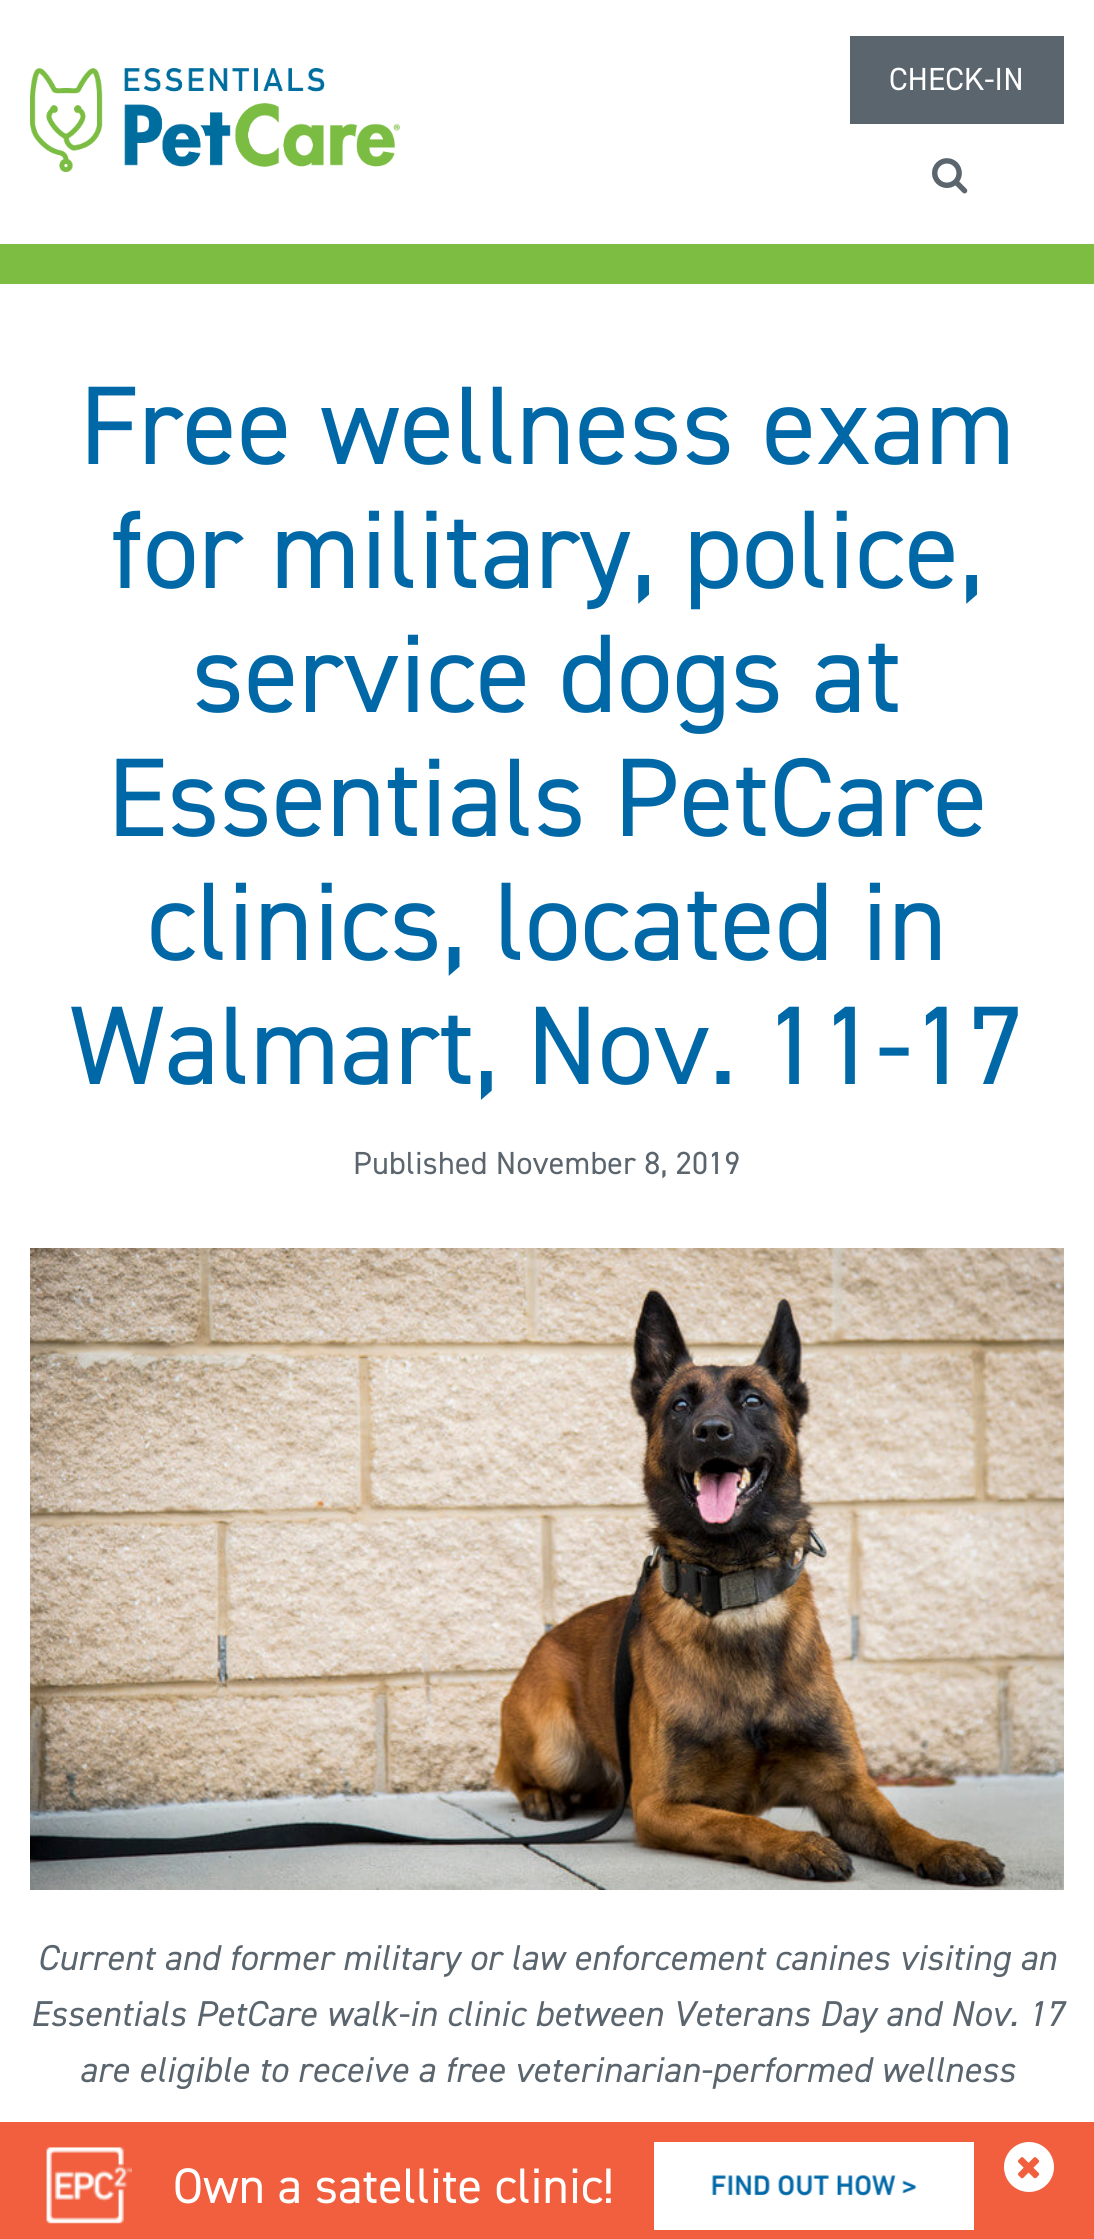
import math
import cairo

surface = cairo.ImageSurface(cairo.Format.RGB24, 1094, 2239)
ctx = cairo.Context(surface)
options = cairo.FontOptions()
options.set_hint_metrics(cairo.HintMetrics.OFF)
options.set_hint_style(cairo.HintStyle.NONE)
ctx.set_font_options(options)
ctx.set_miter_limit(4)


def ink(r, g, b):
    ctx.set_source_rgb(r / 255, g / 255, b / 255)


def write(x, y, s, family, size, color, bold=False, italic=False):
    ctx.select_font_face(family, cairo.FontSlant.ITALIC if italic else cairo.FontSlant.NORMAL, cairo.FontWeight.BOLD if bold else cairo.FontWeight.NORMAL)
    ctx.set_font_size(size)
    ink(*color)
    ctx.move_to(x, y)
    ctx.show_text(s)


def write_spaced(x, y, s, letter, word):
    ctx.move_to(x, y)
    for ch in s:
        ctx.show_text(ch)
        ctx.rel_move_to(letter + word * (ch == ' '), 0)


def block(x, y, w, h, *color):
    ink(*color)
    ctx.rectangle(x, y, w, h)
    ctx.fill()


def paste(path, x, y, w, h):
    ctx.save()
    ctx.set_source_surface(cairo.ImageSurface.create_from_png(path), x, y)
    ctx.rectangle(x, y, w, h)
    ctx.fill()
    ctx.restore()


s1 = dict(family="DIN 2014", size=32, color=(255, 255, 255))
s2 = dict(family="DIN 2014", size=112, color=(0, 104, 167))
s3 = dict(family="DIN 2014", size=50, color=(255, 255, 255))

ink(255, 255, 255)
ctx.paint()
paste("pic1.png", 30, 68, 370, 104)
block(850, 36, 214, 88, 91, 101, 110)
write(889, 90, "CHECK-IN", **s1)
paste("pic2.png", 932, 158, 36, 36)
block(0, 244, 1094, 40, 125, 189, 66)
write(79, 464, "Free wellness exam", **s2)
write(111, 588, "for military, police,", **s2)
write(192, 712, "service dogs at", **s2)
write(107, 836, "Essentials PetCare", **s2)
write(147, 960, "clinics, located in", **s2)
write(70, 1084, "Walmart, Nov. 11-17", **s2)
ctx.set_font_size(32)
ink(91, 101, 110)
write_spaced(353, 1174, "Published November 8, 2019", 0.2, 0)
paste("pic3.png", 30, 1248, 1034, 642)
ctx.select_font_face("DIN 2014", cairo.FontSlant.ITALIC)
ctx.set_font_size(36)
write_spaced(37, 1970, "Current and former military or law enforcement canines visiting an", 0.2, 0)
write_spaced(30, 2026, "Essentials PetCare walk-in clinic between Veterans Day and Nov. 17", 0.2, 0)
write_spaced(79, 2082, "are eligible to receive a free veterinarian-performed wellness", 0.2, 0)
block(0, 2122, 1094, 117, 241, 95, 63)
paste("pic4.png", 46, 2147, 86, 77)
write(173, 2203, "Own a satellite clinic!", **s3)
paste("pic5.png", 654, 2142, 320, 88)
ctx.arc(1029, 2167, 25, 0, 2 * math.pi)
ctx.fill()
paste("pic6.png", 1018, 2157, 22, 22)
surface.write_to_png("screenshot.png")
